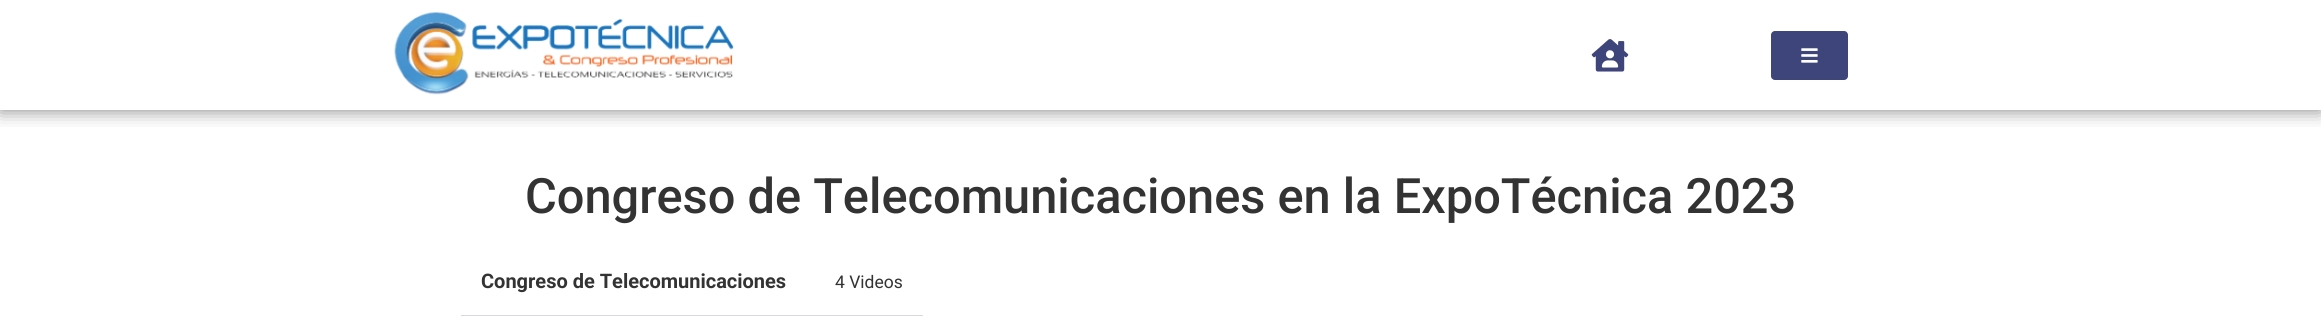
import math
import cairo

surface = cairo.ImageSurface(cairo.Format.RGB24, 2321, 320)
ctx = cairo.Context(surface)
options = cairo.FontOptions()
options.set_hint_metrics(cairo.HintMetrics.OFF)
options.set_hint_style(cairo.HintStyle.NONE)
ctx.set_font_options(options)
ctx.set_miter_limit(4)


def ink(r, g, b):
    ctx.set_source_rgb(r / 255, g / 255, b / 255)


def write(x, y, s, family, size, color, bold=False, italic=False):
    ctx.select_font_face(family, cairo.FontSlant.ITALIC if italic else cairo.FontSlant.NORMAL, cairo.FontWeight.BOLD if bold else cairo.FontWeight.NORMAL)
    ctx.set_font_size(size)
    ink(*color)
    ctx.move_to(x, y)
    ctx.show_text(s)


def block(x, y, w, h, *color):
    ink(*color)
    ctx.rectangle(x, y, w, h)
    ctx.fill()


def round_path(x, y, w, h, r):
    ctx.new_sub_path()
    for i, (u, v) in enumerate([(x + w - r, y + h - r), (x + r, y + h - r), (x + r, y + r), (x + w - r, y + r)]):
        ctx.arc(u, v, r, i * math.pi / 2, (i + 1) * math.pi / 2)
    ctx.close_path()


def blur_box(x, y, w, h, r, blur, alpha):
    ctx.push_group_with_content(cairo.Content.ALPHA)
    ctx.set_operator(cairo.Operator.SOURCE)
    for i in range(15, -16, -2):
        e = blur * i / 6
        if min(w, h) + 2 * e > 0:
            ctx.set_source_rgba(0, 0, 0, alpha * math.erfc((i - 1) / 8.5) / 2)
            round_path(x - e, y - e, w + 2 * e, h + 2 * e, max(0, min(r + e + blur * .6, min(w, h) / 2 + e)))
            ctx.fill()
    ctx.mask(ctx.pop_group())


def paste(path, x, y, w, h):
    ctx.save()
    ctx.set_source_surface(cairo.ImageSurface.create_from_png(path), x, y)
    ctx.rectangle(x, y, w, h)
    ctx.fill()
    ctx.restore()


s1 = dict(family="Roboto Medium", size=48.75, color=(51, 51, 51))
s2 = dict(family="Roboto", size=20, color=(51, 51, 51), bold=True)
s3 = dict(family="Roboto", size=17.5, color=(51, 51, 51))

ink(255, 255, 255)
ctx.paint()
ctx.save()
ctx.rectangle(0, 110, 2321, 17)
ctx.clip()
ink(0, 0, 0)
blur_box(0, 0, 2321, 110, 0, 9.5, 0.5)
ctx.restore()
paste("pic1.png", 394, 12, 340, 83)
paste("pic2.png", 1591, 39, 38, 33)
ink(61, 69, 123)
round_path(1771, 31, 77, 49, 4)
ctx.fill()
paste("pic3.png", 1801, 48, 17, 15)
write(525, 213, "Congreso de Telecomunicaciones en la ExpoTécnica 2023", **s1)
block(461, 315, 462, 1, 213, 216, 220)
write(481, 288, "Congreso de Telecomunicaciones", **s2)
write(835, 288, "4 Videos", **s3)
surface.write_to_png("screenshot.png")
